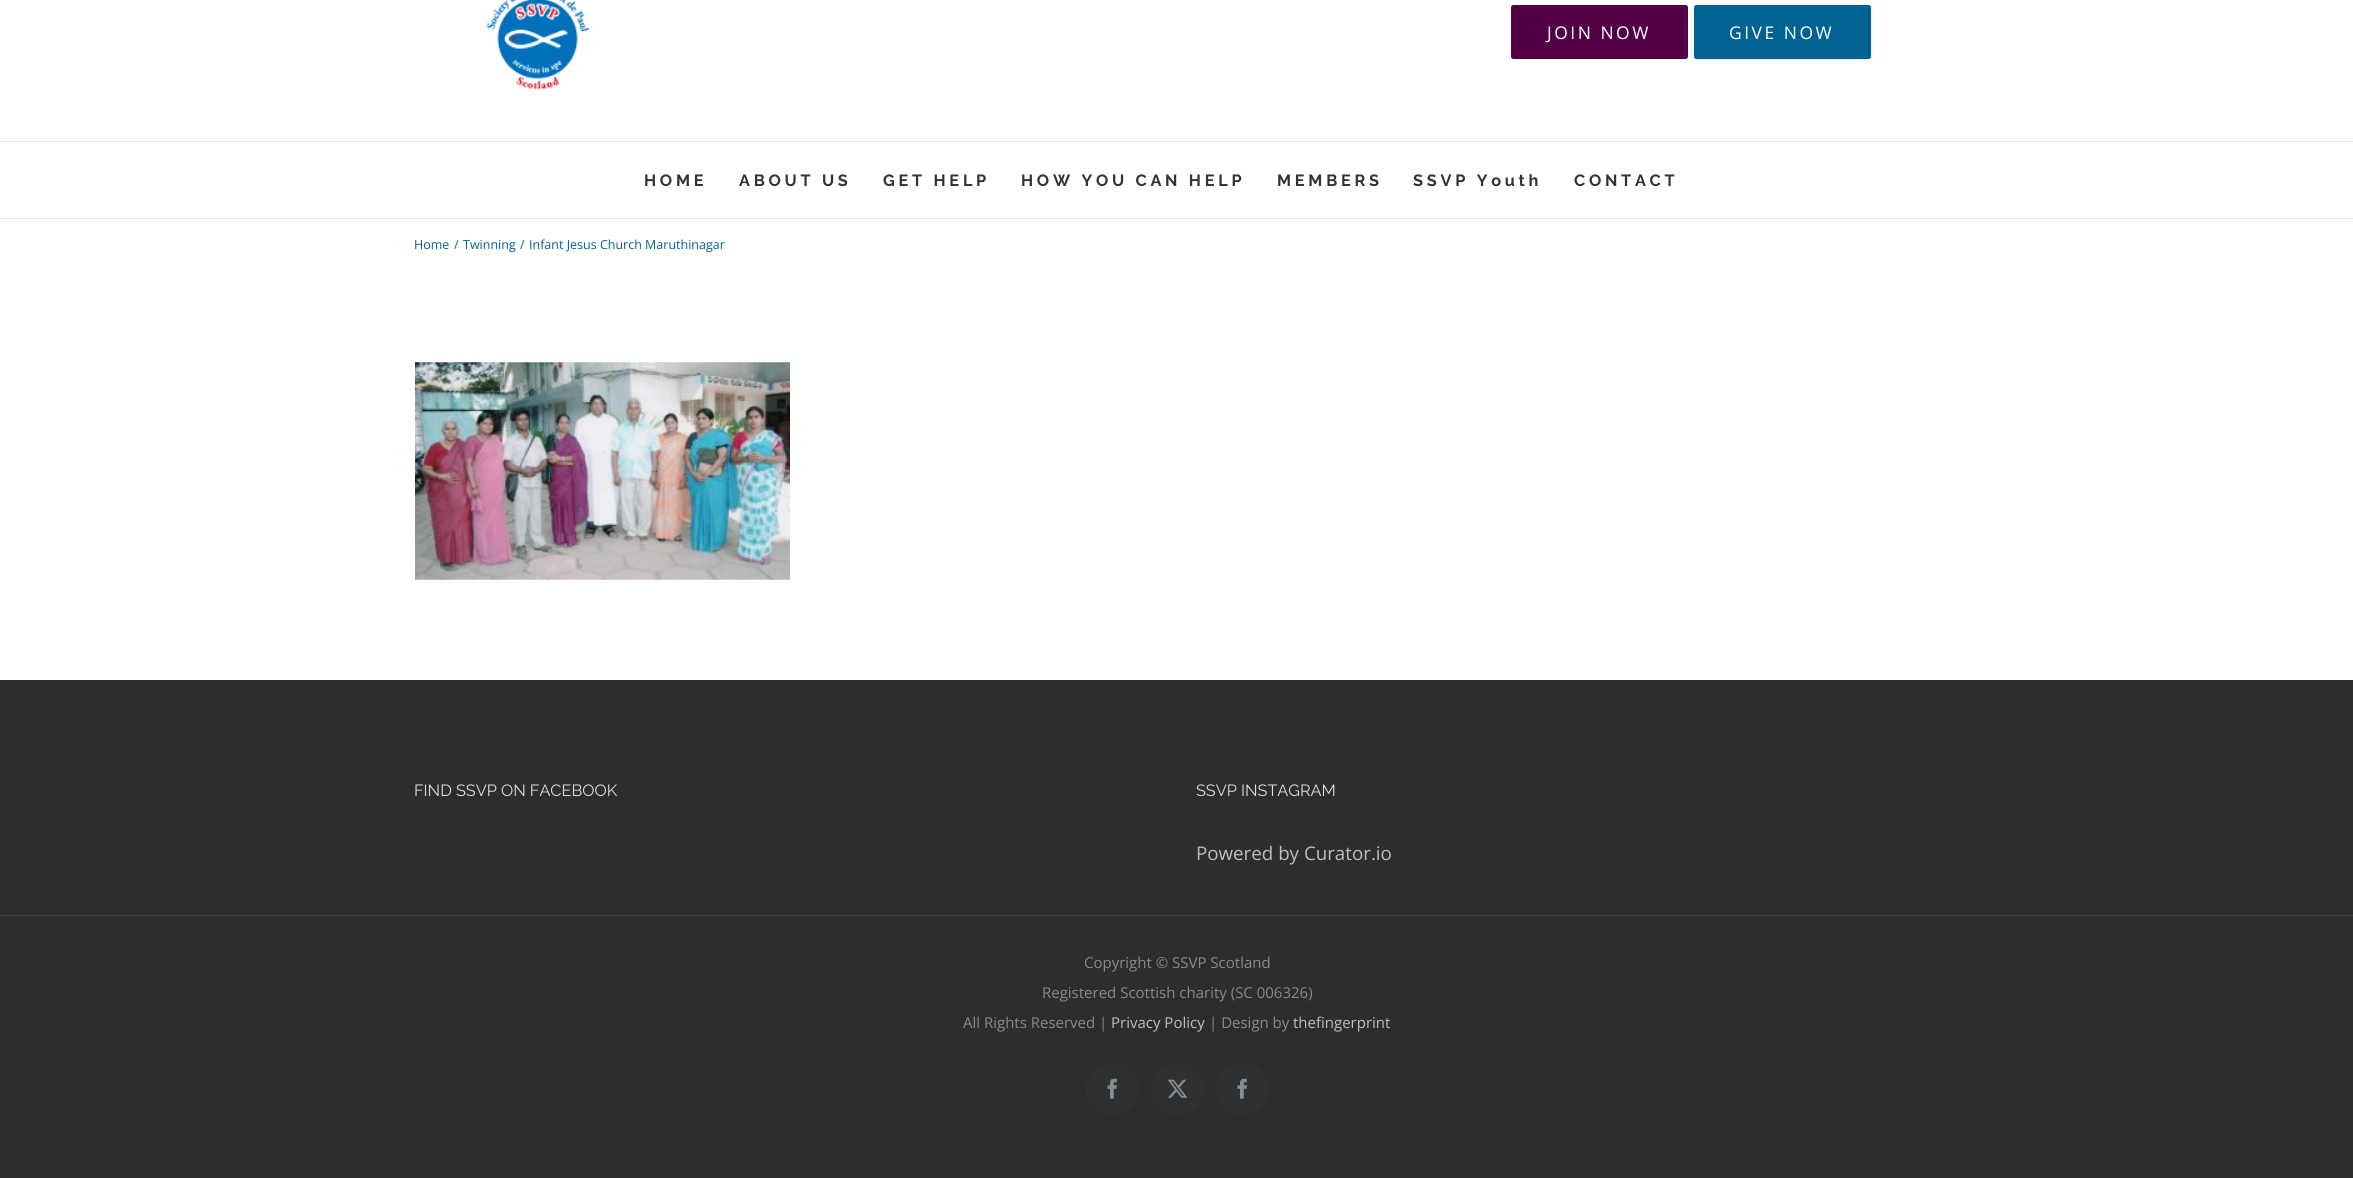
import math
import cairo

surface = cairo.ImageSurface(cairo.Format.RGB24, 2353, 1178)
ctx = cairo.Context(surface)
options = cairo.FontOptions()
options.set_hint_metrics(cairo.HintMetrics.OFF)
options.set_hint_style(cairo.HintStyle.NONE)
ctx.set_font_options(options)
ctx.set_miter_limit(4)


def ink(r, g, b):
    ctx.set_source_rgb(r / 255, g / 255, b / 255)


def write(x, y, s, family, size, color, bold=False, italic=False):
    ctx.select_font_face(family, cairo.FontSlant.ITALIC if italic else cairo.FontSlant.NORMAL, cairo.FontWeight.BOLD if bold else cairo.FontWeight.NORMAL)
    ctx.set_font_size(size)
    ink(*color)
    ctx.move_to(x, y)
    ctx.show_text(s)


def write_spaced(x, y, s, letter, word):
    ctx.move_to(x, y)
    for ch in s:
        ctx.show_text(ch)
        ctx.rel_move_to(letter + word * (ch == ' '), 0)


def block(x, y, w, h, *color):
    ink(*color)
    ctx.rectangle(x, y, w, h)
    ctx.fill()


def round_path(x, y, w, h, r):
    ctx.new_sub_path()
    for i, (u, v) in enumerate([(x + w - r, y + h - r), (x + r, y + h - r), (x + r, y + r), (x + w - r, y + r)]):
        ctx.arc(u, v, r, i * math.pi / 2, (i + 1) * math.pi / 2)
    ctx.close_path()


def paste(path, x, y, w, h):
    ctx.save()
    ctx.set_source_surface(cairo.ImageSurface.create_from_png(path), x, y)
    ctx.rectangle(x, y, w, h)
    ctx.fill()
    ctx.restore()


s1 = dict(family="Open Sans", size=12.5, color=(0, 98, 147))
s2 = dict(family="Raleway", size=16.25, color=(221, 221, 221))
s3 = dict(family="Open Sans", size=18.75, color=(191, 191, 191))
s4 = dict(family="Open Sans", size=15, color=(140, 137, 137))
s5 = dict(family="Open Sans", size=15, color=(191, 191, 191))

ink(255, 255, 255)
ctx.paint()
block(0, 141, 2353, 1, 229, 229, 229)
paste("pic1.png", 486, 0, 104, 90)
ink(81, 0, 69)
round_path(1511, 5, 177, 54, 2.5)
ctx.fill()
ctx.select_font_face("Open Sans")
ctx.set_font_size(17.5)
ink(255, 255, 255)
write_spaced(1547, 39, "JOIN NOW", 2.5, 0)
ink(0, 98, 147)
round_path(1694, 5, 177, 54, 2.5)
ctx.fill()
ink(255, 255, 255)
write_spaced(1729, 39, "GIVE NOW", 2.5, 0)
block(0, 218, 2353, 1, 229, 229, 229)
ctx.select_font_face("Raleway", cairo.FontSlant.NORMAL, cairo.FontWeight.BOLD)
ctx.set_font_size(16.25)
ink(51, 51, 51)
write_spaced(644, 186, "HOME", 3.75, 0)
write_spaced(739, 186, "ABOUT US", 3.75, 0)
write_spaced(883, 186, "GET HELP", 3.75, 0)
write_spaced(1021, 186, "HOW YOU CAN HELP", 3.75, 0)
write_spaced(1277, 186, "MEMBERS", 3.75, 0)
write_spaced(1413, 186, "SSVP Youth", 3.75, 0)
write_spaced(1574, 186, "CONTACT", 3.75, 0)
write(414, 249, "Home", **s1)
write(454, 249, "/", **s1)
write(463, 249, "Twinning", **s1)
write(520, 249, "/", **s1)
write(529, 249, "Infant Jesus Church Maruthinagar", **s1)
paste("pic2.png", 415, 362, 375, 218)
block(0, 680, 2353, 235, 44, 45, 47)
write(414, 796, "FIND SSVP ON FACEBOOK", **s2)
write(1196, 796, "SSVP INSTAGRAM", **s2)
write(1196, 860, "Powered by Curator.io", **s3)
block(0, 916, 2353, 262, 44, 45, 47)
block(0, 915, 2353, 1, 64, 64, 66)
write(1084, 968, "Copyright © SSVP Scotland", **s4)
write(1042, 998, "Registered Scottish charity (SC 006326)", **s4)
write(963, 1028, "All Rights Reserved |", **s4)
write(1111, 1028, "Privacy Policy", **s5)
write(1209, 1028, "| Design by", **s4)
write(1293, 1028, "thefingerprint", **s5)
ink(47, 48, 50)
round_path(1086, 1063, 53, 52, 26)
ctx.fill()
paste("pic3.png", 1107, 1078, 10, 21)
round_path(1151, 1063, 53, 52, 26)
ctx.fill()
paste("pic4.png", 1167, 1079, 21, 19)
round_path(1216, 1063, 53, 52, 26)
ctx.fill()
paste("pic3.png", 1237, 1078, 10, 21)
surface.write_to_png("screenshot.png")
